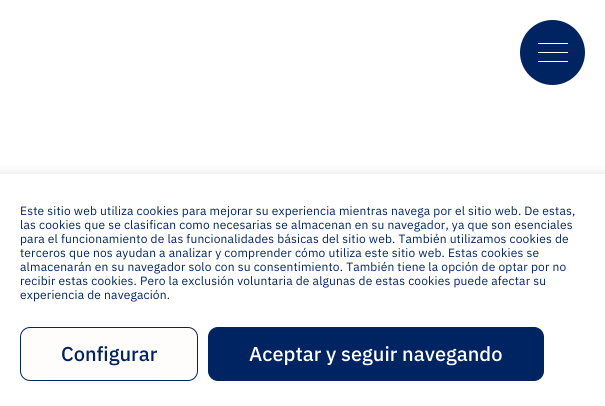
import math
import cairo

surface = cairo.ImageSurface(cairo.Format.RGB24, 605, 406)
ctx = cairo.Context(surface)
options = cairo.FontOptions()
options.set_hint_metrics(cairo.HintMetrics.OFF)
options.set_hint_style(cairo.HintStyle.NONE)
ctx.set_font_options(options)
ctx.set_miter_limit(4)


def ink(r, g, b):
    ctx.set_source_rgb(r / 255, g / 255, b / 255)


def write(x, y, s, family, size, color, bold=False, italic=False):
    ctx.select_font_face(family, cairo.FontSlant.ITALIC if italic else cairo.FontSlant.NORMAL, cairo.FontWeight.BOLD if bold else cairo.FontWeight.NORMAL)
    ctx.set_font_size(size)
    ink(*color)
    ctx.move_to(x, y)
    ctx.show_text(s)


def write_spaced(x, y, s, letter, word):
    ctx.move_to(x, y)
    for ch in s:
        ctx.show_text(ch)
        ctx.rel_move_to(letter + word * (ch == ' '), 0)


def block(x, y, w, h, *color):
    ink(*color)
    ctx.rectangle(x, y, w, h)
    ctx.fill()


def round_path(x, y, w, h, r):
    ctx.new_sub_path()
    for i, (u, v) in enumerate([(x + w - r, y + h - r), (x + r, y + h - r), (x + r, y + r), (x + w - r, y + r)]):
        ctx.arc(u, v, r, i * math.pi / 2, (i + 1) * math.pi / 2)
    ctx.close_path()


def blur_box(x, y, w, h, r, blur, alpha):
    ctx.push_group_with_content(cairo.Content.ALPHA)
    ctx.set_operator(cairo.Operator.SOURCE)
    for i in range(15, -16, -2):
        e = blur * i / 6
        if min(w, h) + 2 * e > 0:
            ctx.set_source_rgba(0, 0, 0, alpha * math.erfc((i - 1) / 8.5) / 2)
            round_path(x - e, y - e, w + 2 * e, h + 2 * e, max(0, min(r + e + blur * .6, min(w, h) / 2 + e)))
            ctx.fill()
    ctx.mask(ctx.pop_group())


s1 = dict(family="IBM Plex Sans Medium", size=20, color=(0, 35, 97))
s2 = dict(family="IBM Plex Sans Medium", size=20, color=(255, 255, 255))

ink(255, 255, 255)
ctx.paint()
ink(0, 35, 97)
ctx.arc(552.5, 52.5, 32.5, 0, 2 * math.pi)
ctx.fill()
block(538, 43, 30, 1, 255, 255, 255)
block(538, 52, 30, 1, 255, 255, 255)
block(538, 61, 30, 1, 255, 255, 255)
ink(172, 171, 171)
blur_box(0, 173, 605, 232, 0, 5, 0.3)
block(0, 174, 605, 232, 255, 255, 255)
ctx.select_font_face("IBM Plex Sans")
ctx.set_font_size(12)
ink(0, 35, 97)
write_spaced(20, 215, "Este sitio web utiliza cookies para mejorar su experiencia mientras navega por el sitio web. De estas,", 0.16, 0)
write_spaced(20, 229, "las cookies que se clasifican como necesarias se almacenan en su navegador, ya que son esenciales", 0.16, 0)
write_spaced(20, 243, "para el funcionamiento de las funcionalidades básicas del sitio web. También utilizamos cookies de", 0.16, 0)
write_spaced(20, 257, "terceros que nos ayudan a analizar y comprender cómo utiliza este sitio web. Estas cookies se", 0.16, 0)
write_spaced(20, 271, "almacenarán en su navegador solo con su consentimiento. También tiene la opción de optar por no", 0.16, 0)
write_spaced(20, 285, "recibir estas cookies. Pero la exclusión voluntaria de algunas de estas cookies puede afectar su", 0.16, 0)
write_spaced(20, 299, "experiencia de navegación.", 0.16, 0)
ink(255, 252, 252)
round_path(20.5, 327.5, 177, 53, 9.5)
ctx.fill_preserve()
ink(0, 35, 97)
ctx.set_line_width(1)
ctx.stroke()
write(61, 361, "Configurar", **s1)
round_path(208.5, 327.5, 335, 53, 9.5)
ctx.fill_preserve()
ctx.stroke()
write(249, 361, "Aceptar y seguir navegando", **s2)
surface.write_to_png("screenshot.png")
